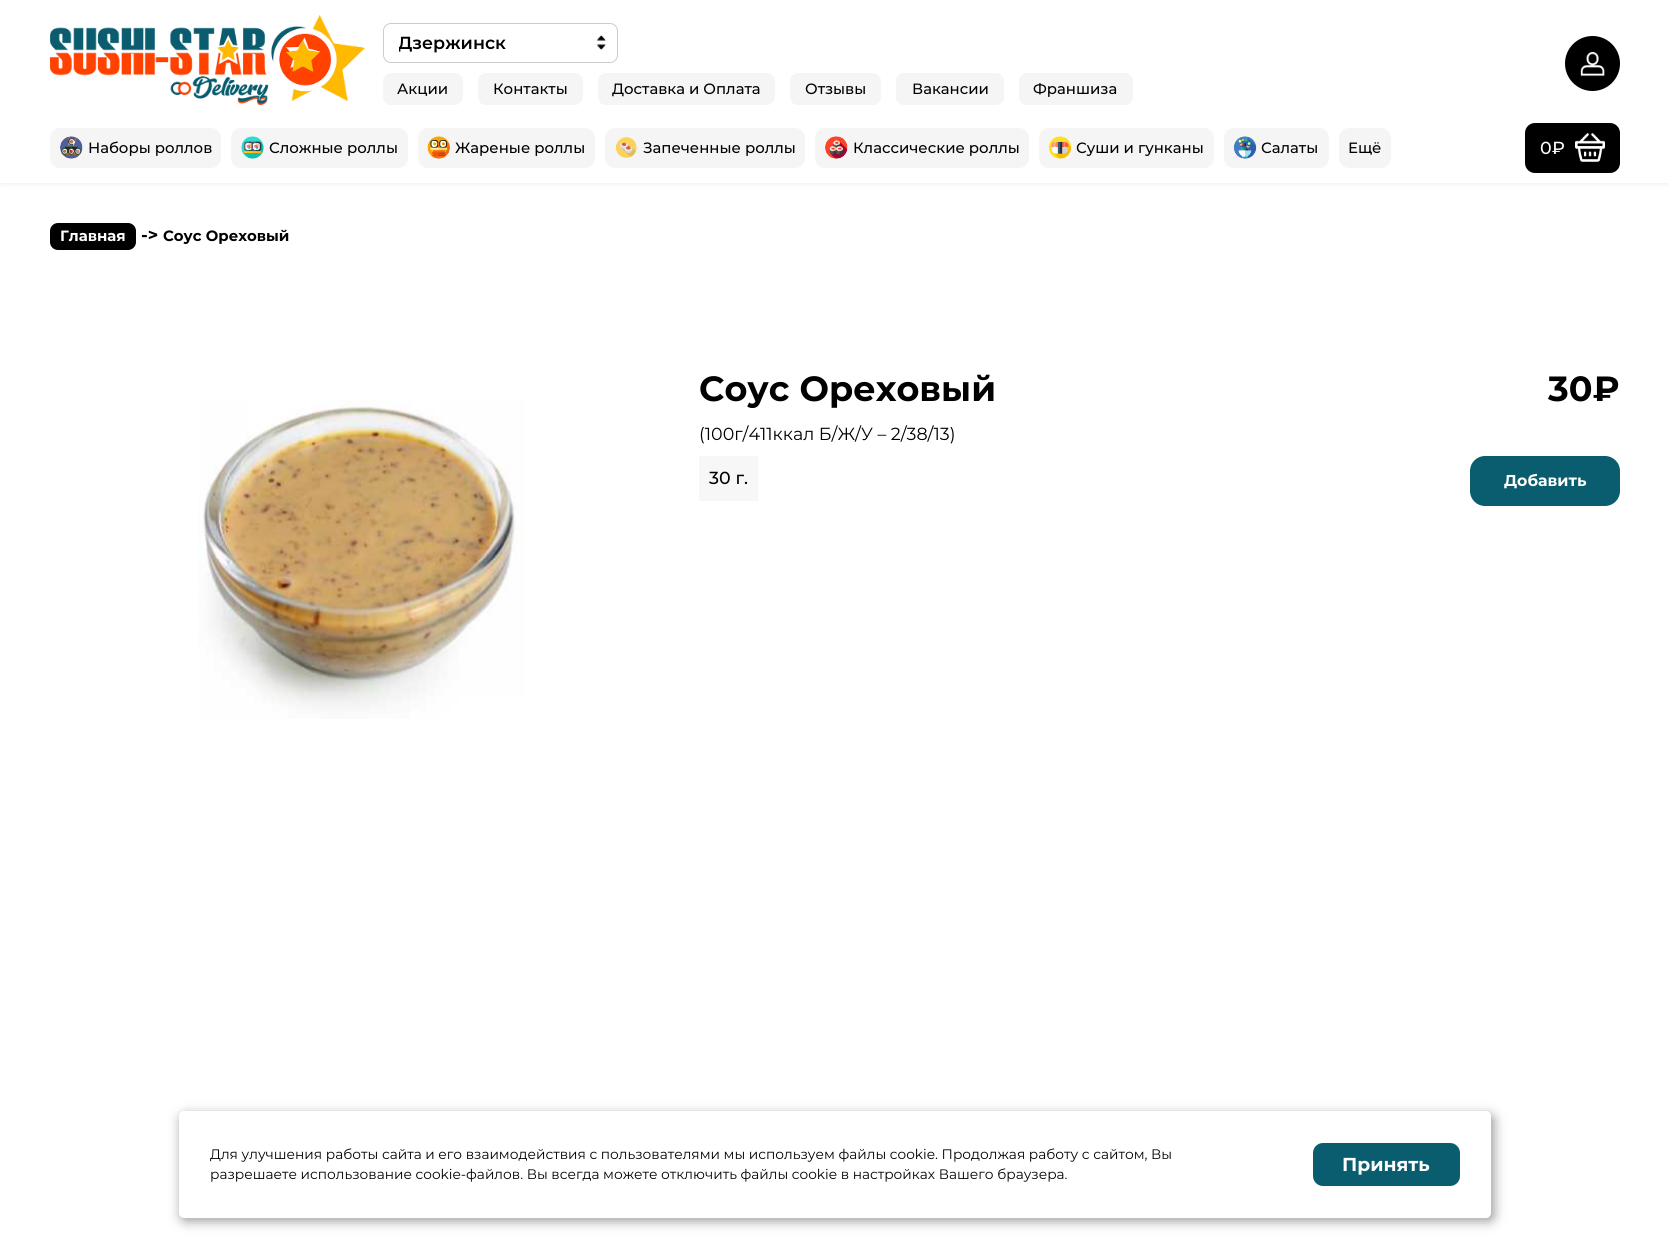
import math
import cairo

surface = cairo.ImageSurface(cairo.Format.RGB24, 1669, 1236)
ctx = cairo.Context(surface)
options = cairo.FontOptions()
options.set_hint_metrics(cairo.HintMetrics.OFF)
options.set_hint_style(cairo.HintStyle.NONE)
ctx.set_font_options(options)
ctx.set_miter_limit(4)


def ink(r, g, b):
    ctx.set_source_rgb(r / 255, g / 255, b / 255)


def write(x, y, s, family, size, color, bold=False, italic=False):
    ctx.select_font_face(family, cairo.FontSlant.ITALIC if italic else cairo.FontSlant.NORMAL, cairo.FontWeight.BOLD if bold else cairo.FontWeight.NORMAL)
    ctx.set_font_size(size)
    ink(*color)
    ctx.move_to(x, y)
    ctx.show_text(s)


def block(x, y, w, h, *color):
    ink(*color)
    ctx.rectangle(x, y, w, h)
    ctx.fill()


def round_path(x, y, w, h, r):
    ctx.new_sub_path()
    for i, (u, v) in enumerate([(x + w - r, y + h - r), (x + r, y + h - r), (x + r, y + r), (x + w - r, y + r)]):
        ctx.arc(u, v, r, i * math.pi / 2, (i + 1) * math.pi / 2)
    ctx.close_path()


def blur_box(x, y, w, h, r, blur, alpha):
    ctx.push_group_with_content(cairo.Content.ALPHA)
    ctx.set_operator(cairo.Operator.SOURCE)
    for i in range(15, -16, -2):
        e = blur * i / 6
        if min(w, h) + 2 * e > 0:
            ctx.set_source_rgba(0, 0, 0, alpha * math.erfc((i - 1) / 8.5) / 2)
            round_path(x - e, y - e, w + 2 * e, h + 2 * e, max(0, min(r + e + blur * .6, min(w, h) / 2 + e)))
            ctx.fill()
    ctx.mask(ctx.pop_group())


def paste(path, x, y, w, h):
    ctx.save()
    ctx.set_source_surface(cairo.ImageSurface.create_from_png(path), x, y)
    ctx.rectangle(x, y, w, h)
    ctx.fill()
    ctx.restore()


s1 = dict(family="Montserrat SemiBold", size=17.5, color=(0, 0, 0))
s2 = dict(family="Montserrat Medium", size=14.9, color=(0, 0, 0))
s3 = dict(family="Montserrat Medium", size=17.5, color=(255, 255, 255))
s4 = dict(family="Montserrat", size=14.9, color=(255, 255, 255), bold=True)
s5 = dict(family="Montserrat", size=17.5, color=(0, 0, 0), bold=True)
s6 = dict(family="Montserrat", size=14.9, color=(0, 0, 0), bold=True)
s7 = dict(family="Montserrat", size=35, color=(0, 0, 0), bold=True)
s8 = dict(family="Montserrat", size=17.5, color=(0, 0, 0))
s9 = dict(family="Montserrat Medium", size=17.5, color=(0, 0, 0))
s10 = dict(family="Montserrat", size=15.75, color=(255, 255, 255), bold=True)
s11 = dict(family="Montserrat", size=13.75, color=(0, 0, 0))
s12 = dict(family="Montserrat", size=18.75, color=(255, 255, 255), bold=True)

ink(255, 255, 255)
ctx.paint()
ink(0, 0, 0)
blur_box(0, 0, 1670, 183, 0, 3, 0.1)
block(0, 0, 1669, 183, 255, 255, 255)
paste("pic1.png", 50, 15, 315, 90)
paste("pic2.png", 596, 35, 10, 15)
round_path(383.5, 23.5, 234, 39, 7.5)
ink(204, 204, 204)
ctx.set_line_width(1)
ctx.stroke()
ctx.save()
ctx.rectangle(399, 31, 197, 23)
ctx.clip()
write(398, 49, "Дзержинск", **s1)
ctx.restore()
ink(245, 245, 245)
round_path(383, 73, 80, 32, 8)
ctx.fill()
write(397, 94, "Акции", **s2)
ink(245, 245, 245)
round_path(478, 73, 105, 32, 8)
ctx.fill()
write(493, 94, "Контакты", **s2)
ink(245, 245, 245)
round_path(598, 73, 177, 32, 8)
ctx.fill()
write(612, 94, "Доставка и Оплата", **s2)
ink(245, 245, 245)
round_path(790, 73, 91, 32, 8)
ctx.fill()
write(805, 94, "Отзывы", **s2)
ink(245, 245, 245)
round_path(896, 73, 108, 32, 8)
ctx.fill()
write(912, 94, "Вакансии", **s2)
ink(245, 245, 245)
round_path(1019, 73, 114, 32, 8)
ctx.fill()
write(1033, 94, "Франшиза", **s2)
ctx.new_path()
ctx.arc(1592.5, 63.5, 27.5, 0, 2 * math.pi)
ctx.fill()
paste("pic3.png", 1580, 52, 25, 25)
ink(245, 245, 245)
round_path(50, 128, 171, 40, 10)
ctx.fill()
paste("pic4.png", 60, 136, 23, 23)
write(88, 153, "Наборы роллов", **s2)
ink(245, 245, 245)
round_path(231, 128, 177, 40, 10)
ctx.fill()
paste("pic5.png", 241, 136, 23, 23)
write(269, 153, "Сложные роллы", **s2)
ink(245, 245, 245)
round_path(418, 128, 177, 40, 10)
ctx.fill()
paste("pic6.png", 427, 136, 23, 23)
write(455, 153, "Жареные роллы", **s2)
ink(245, 245, 245)
round_path(605, 128, 200, 40, 10)
ctx.fill()
paste("pic7.png", 615, 137, 22, 21)
write(643, 153, "Запеченные роллы", **s2)
ink(245, 245, 245)
round_path(815, 128, 214, 40, 10)
ctx.fill()
paste("pic8.png", 825, 136, 23, 23)
write(853, 153, "Классические роллы", **s2)
ink(245, 245, 245)
round_path(1039, 128, 175, 40, 10)
ctx.fill()
paste("pic9.png", 1048, 136, 24, 23)
write(1076, 153, "Суши и гунканы", **s2)
ink(245, 245, 245)
round_path(1224, 128, 105, 40, 10)
ctx.fill()
paste("pic10.png", 1233, 136, 24, 23)
write(1261, 153, "Салаты", **s2)
ink(245, 245, 245)
round_path(1339, 128, 52, 40, 10)
ctx.fill()
write(1348, 153, "Ещё", **s2)
round_path(1525, 123, 95, 50, 10)
ctx.fill()
write(1540, 154, "0₽", **s3)
paste("pic11.png", 1575, 133, 30, 29)
ink(0, 0, 0)
round_path(50, 223, 86, 27, 8)
ctx.fill()
write(60, 241, "Главная", **s4)
write(141, 241, "->", **s5)
write(163, 241, "Соус Ореховый", **s6)
paste("pic12.png", 198, 400, 327, 319)
write(699, 401, "Соус Ореховый", **s7)
write(1548, 401, "30₽", **s7)
write(699, 440, "(100г/411ккал Б/Ж/У – 2/38/13)", **s8)
block(699, 456, 59, 45, 247, 247, 247)
write(709, 484, "30 г.", **s9)
ink(9, 93, 110)
round_path(1470, 456, 150, 50, 15)
ctx.fill()
write(1504, 486, "Добавить", **s10)
ink(0, 0, 0)
blur_box(181, 1115, 1313, 106, 5, 6, 0.4)
ink(255, 255, 255)
round_path(179, 1111, 1312, 107, 5)
ctx.fill()
write(210, 1159, "Для улучшения работы сайта и его взаимодействия с пользователями мы используем файлы cookie. Продолжая работу с сайтом, Вы", **s11)
write(210, 1179, "разрешаете использование cookie-файлов. Вы всегда можете отключить файлы cookie в настройках Вашего браузера.", **s11)
ink(9, 93, 110)
round_path(1313, 1143, 147, 43, 10)
ctx.fill()
write(1342, 1171, "Принять", **s12)
surface.write_to_png("screenshot.png")
